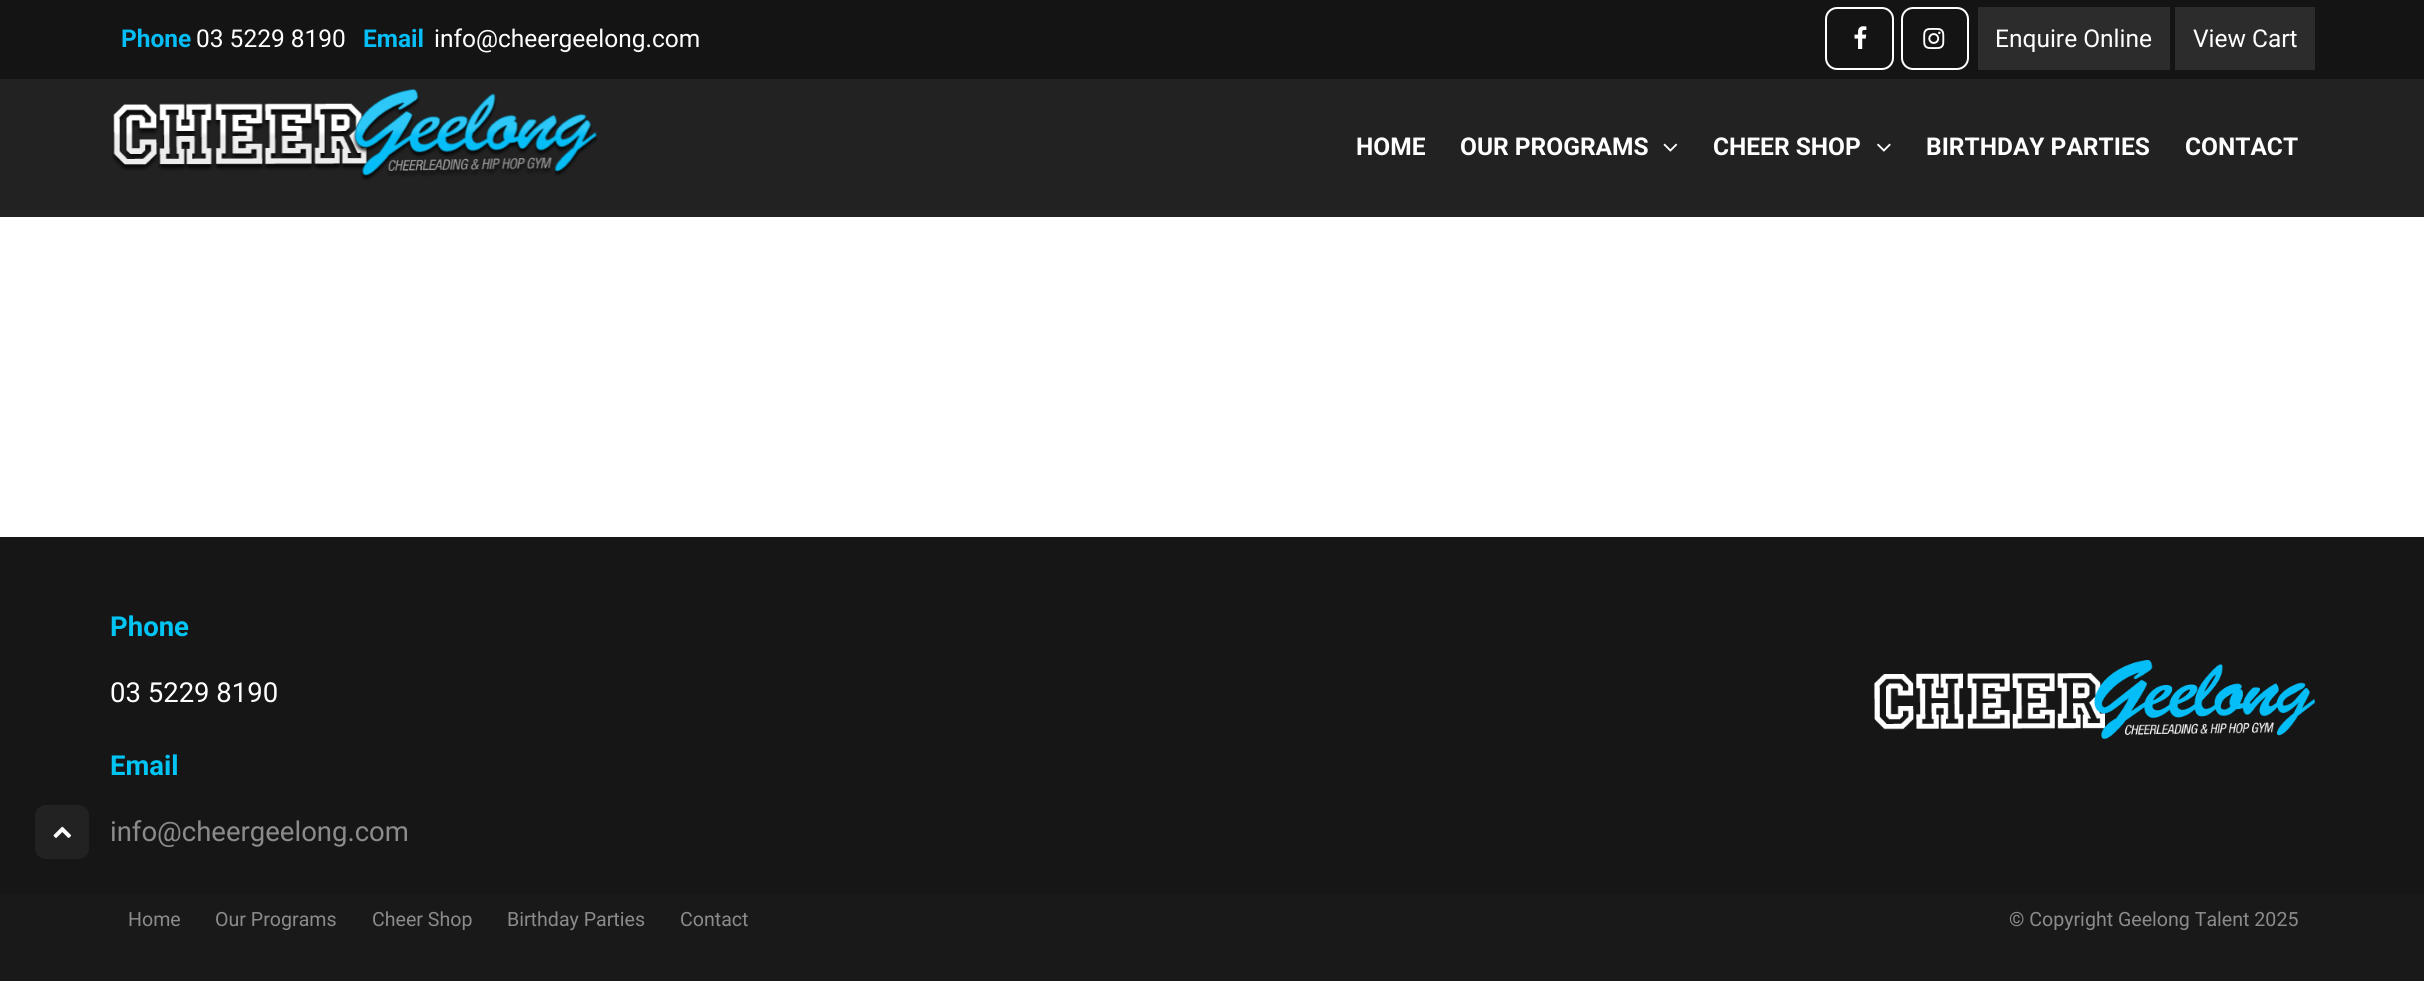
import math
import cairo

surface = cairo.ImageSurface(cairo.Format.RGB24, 2424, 981)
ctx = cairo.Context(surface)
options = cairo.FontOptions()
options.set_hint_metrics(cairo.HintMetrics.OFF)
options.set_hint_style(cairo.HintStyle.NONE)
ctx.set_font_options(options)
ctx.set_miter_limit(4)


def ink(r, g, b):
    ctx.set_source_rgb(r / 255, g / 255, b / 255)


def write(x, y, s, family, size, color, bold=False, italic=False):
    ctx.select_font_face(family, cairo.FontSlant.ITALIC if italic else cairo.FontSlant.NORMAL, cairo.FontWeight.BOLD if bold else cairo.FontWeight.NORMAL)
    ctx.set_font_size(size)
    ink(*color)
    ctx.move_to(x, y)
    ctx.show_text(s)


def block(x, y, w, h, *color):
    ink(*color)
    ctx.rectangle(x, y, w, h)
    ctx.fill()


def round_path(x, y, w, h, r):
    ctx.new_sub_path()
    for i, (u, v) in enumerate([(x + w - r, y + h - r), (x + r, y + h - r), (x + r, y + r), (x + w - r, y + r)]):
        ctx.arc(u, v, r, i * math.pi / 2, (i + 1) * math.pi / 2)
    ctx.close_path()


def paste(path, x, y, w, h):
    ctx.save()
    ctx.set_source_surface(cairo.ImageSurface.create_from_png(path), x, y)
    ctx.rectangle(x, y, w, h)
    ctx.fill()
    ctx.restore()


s1 = dict(family="Roboto", size=24.5, color=(5, 189, 247), bold=True)
s2 = dict(family="Roboto", size=24.5, color=(255, 255, 255))
s3 = dict(family="Roboto", size=24.5, color=(255, 255, 255), bold=True)
s4 = dict(family="Roboto", size=27.5, color=(0, 197, 244), bold=True)
s5 = dict(family="Roboto", size=27.5, color=(255, 255, 255))
s6 = dict(family="Roboto", size=27.5, color=(139, 139, 139))
s7 = dict(family="Roboto", size=19.6, color=(139, 139, 139))

ink(255, 255, 255)
ctx.paint()
block(0, 79, 2424, 138, 34, 34, 34)
block(0, 0, 2424, 79, 20, 20, 20)
write(121, 47, "Phone", **s1)
write(196, 47, "03 5229 8190", **s2)
write(363, 47, "Email", **s1)
write(434, 47, "info@cheergeelong.com", **s2)
round_path(1826, 8, 67, 61, 11)
ctx.stroke()
paste("pic1.png", 1854, 26, 13, 23)
round_path(1902, 8, 66, 61, 11)
ctx.stroke()
paste("pic2.png", 1923, 28, 22, 21)
block(1978, 7, 192, 63, 44, 44, 44)
write(1995, 47, "Enquire Online", **s2)
block(2175, 7, 140, 63, 44, 44, 44)
write(2193, 47, "View Cart", **s2)
paste("pic3.png", 112, 89, 486, 91)
write(1356, 155, "HOME", **s3)
write(1460, 155, "OUR PROGRAMS", **s3)
paste("pic4.png", 1663, 143, 15, 9)
write(1713, 155, "CHEER SHOP", **s3)
paste("pic5.png", 1877, 143, 14, 9)
write(1926, 155, "BIRTHDAY PARTIES", **s3)
write(2185, 155, "CONTACT", **s3)
block(0, 894, 2424, 87, 25, 25, 25)
block(0, 537, 2424, 357, 22, 22, 22)
ink(34, 34, 34)
round_path(36, 806, 52, 52, 10)
ctx.fill_preserve()
ctx.stroke()
paste("pic6.png", 53, 826, 19, 12)
write(110, 636, "Phone", **s4)
write(110, 702, "03 5229 8190", **s5)
write(110, 775, "Email", **s4)
write(110, 841, "info@cheergeelong.com", **s6)
paste("pic7.png", 1874, 660, 442, 79)
write(128, 926, "Home", **s7)
write(215, 926, "Our Programs", **s7)
write(372, 926, "Cheer Shop", **s7)
write(507, 926, "Birthday Parties", **s7)
write(680, 926, "Contact", **s7)
write(2009, 926, "© Copyright Geelong Talent 2025", **s7)
surface.write_to_png("screenshot.png")
